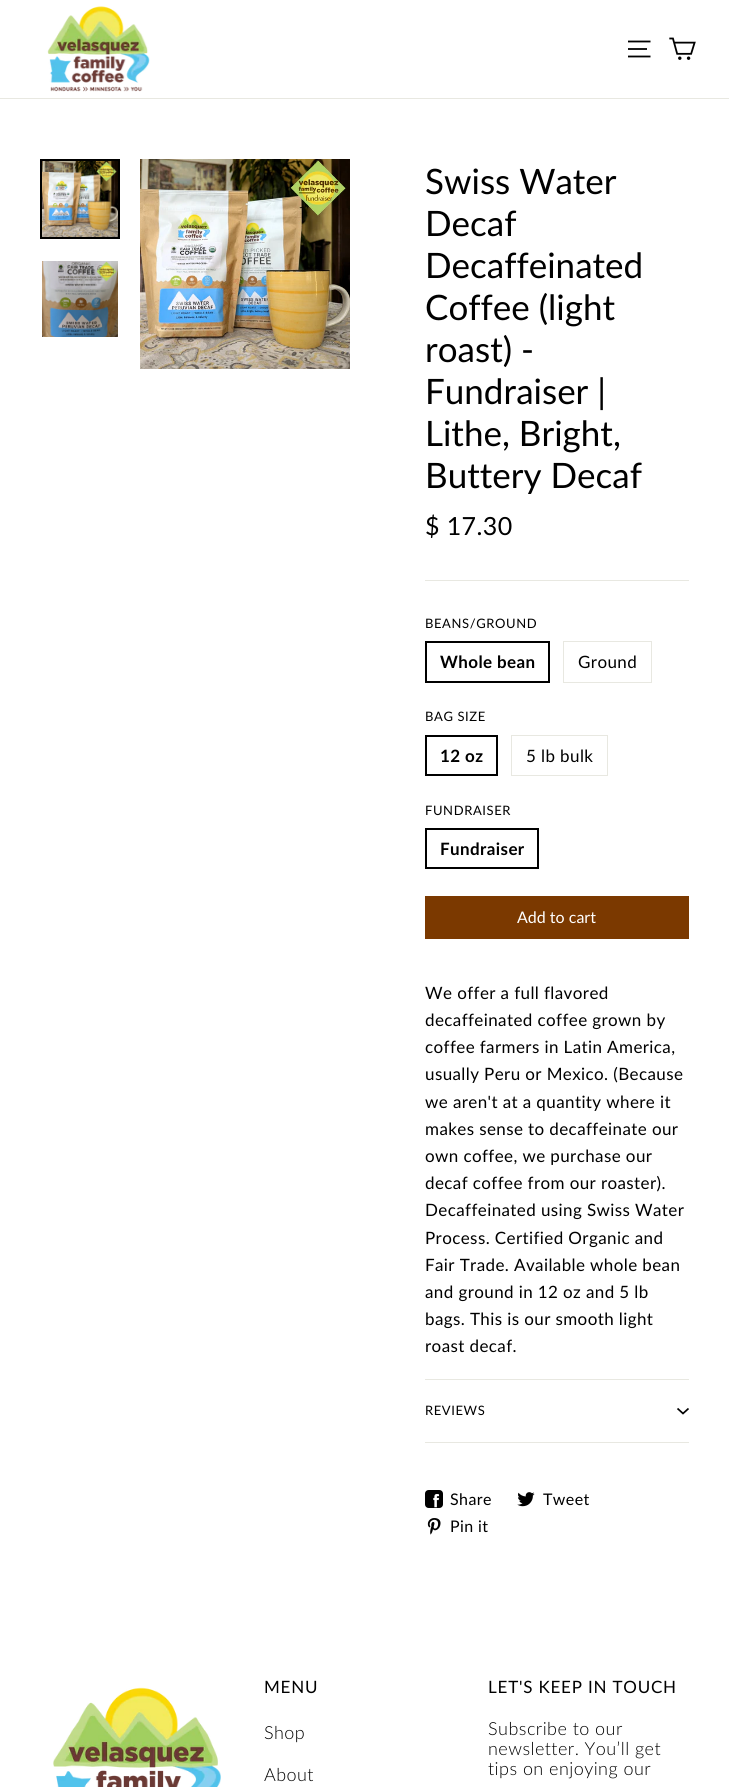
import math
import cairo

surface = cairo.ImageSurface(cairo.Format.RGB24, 729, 1787)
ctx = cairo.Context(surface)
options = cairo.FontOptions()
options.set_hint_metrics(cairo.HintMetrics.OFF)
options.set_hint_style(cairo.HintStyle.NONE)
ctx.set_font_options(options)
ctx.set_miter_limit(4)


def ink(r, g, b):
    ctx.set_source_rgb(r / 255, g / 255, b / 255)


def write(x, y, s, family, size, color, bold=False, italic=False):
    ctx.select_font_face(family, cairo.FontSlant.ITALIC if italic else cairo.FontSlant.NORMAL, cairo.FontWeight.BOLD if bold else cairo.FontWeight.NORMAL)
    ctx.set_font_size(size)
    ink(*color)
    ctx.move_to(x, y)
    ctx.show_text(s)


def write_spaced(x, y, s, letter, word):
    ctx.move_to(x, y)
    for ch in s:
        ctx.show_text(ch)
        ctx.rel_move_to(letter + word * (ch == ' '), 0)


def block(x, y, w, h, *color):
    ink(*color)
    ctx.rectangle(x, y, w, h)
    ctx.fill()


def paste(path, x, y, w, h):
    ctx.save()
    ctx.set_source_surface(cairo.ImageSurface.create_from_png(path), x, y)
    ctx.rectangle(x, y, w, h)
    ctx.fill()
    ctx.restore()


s1 = dict(family="Lato", size=35, color=(0, 0, 0))
s2 = dict(family="Lato", size=16, color=(255, 255, 255))

ink(255, 255, 255)
ctx.paint()
block(0, 98, 729, 1, 232, 232, 225)
paste("pic1.png", 47, 6, 103, 86)
ctx.new_path()
ctx.move_to(628, 41.5)
ctx.line_to(650.5, 41.5)
ctx.move_to(628, 49)
ctx.line_to(647, 49)
ctx.move_to(628, 56.5)
ctx.line_to(650.5, 56.5)
ink(0, 0, 0)
ctx.set_line_width(1.8)
ctx.stroke()
paste("pic2.png", 669, 37, 27, 23)
ctx.rectangle(41, 160, 78, 78)
ctx.set_line_width(2)
ctx.stroke()
paste("pic3.png", 42, 161, 76, 76)
paste("pic4.png", 42, 261, 76, 76)
paste("pic5.png", 140, 159, 210, 210)
write(425, 194, "Swiss Water", **s1)
write(425, 236, "Decaf", **s1)
write(425, 278, "Decaffeinated", **s1)
write(425, 320, "Coffee (light", **s1)
write(425, 362, "roast) -", **s1)
write(425, 404, "Fundraiser |", **s1)
write(425, 446, "Lithe, Bright,", **s1)
write(425, 488, "Buttery Decaf", **s1)
ctx.set_font_size(25)
write_spaced(425, 535, "$ 17.30", 0.4, 0)
block(425, 580, 264, 1, 232, 232, 225)
ctx.set_font_size(13)
ink(0, 0, 0)
write_spaced(425, 628, "BEANS/GROUND", 0.6, 0)
ctx.rectangle(426, 642, 123, 40)
ctx.stroke()
ctx.select_font_face("Lato", cairo.FontSlant.NORMAL, cairo.FontWeight.BOLD)
ctx.set_font_size(17)
write_spaced(440, 668, "Whole bean", 0.4, 0)
ctx.rectangle(563.5, 641.5, 88, 41)
ink(232, 232, 225)
ctx.set_line_width(1)
ctx.stroke()
ctx.select_font_face("Lato")
ink(0, 0, 0)
write_spaced(578, 668, "Ground", 0.4, 0)
ctx.set_font_size(13)
write_spaced(425, 721, "BAG SIZE", 0.6, 0)
ctx.rectangle(426, 736, 71, 39)
ctx.set_line_width(2)
ctx.stroke()
ctx.select_font_face("Lato", cairo.FontSlant.NORMAL, cairo.FontWeight.BOLD)
ctx.set_font_size(17)
write_spaced(440, 762, "12 oz", 0.4, 0)
ctx.rectangle(511.5, 735.5, 96, 40)
ink(232, 232, 225)
ctx.set_line_width(1)
ctx.stroke()
ctx.select_font_face("Lato")
ink(0, 0, 0)
write_spaced(526, 762, "5 lb bulk", 0.4, 0)
ctx.set_font_size(13)
write_spaced(425, 815, "FUNDRAISER", 0.6, 0)
ctx.rectangle(426, 829, 112, 39)
ctx.set_line_width(2)
ctx.stroke()
ctx.select_font_face("Lato", cairo.FontSlant.NORMAL, cairo.FontWeight.BOLD)
ctx.set_font_size(17)
write_spaced(440, 855, "Fundraiser", 0.4, 0)
block(425, 896, 264, 43, 123, 57, 0)
write(517, 923, "Add to cart", **s2)
ctx.set_font_size(17)
ink(0, 0, 0)
write_spaced(425, 999, "We offer a full flavored", 0.4, 0)
write_spaced(425, 1026, "decaffeinated coffee grown by", 0.4, 0)
write_spaced(425, 1053, "coffee farmers in Latin America,", 0.4, 0)
write_spaced(425, 1080, "usually Peru or Mexico. (Because", 0.4, 0)
write_spaced(425, 1108, "we aren't at a quantity where it", 0.4, 0)
write_spaced(425, 1135, "makes sense to decaffeinate our", 0.4, 0)
write_spaced(425, 1162, "own coffee, we purchase our", 0.4, 0)
write_spaced(425, 1189, "decaf coffee from our roaster).", 0.4, 0)
write_spaced(425, 1216, "Decaffeinated using Swiss Water", 0.4, 0)
write_spaced(425, 1244, "Process. Certified Organic and", 0.4, 0)
write_spaced(425, 1271, "Fair Trade. Available whole bean", 0.4, 0)
write_spaced(425, 1298, "and ground in 12 oz and 5 lb", 0.4, 0)
write_spaced(425, 1325, "bags. This is our smooth light", 0.4, 0)
write_spaced(425, 1352, "roast decaf.", 0.4, 0)
block(425, 1442, 264, 1, 232, 232, 225)
block(425, 1379, 264, 1, 232, 232, 225)
ctx.set_font_size(13)
ink(0, 0, 0)
write_spaced(425, 1415, "REVIEWS", 0.6, 0)
ctx.new_path()
ctx.move_to(677.5, 1408.5)
ctx.line_to(683, 1413.5)
ctx.line_to(688.5, 1408.5)
ctx.set_line_width(1.7)
ctx.stroke()
paste("pic6.png", 425, 1490, 18, 18)
ctx.set_font_size(16)
write_spaced(450, 1505, "Share", 0.4, 0)
paste("pic7.png", 517, 1492, 18, 15)
write_spaced(543, 1505, "Tweet", 0.4, 0)
paste("pic8.png", 427, 1518, 14, 17)
write_spaced(450, 1532, "Pin it", 0.4, 0)
paste("pic9.png", 53, 1687, 168, 100)
ctx.set_font_size(17)
write_spaced(264, 1693, "MENU", 0.8, 0)
ctx.select_font_face("Lato Light")
ctx.set_font_size(18)
write_spaced(264, 1739, "Shop", 0.4, 0)
write_spaced(264, 1781, "About", 0.4, 0)
ctx.select_font_face("Lato")
ctx.set_font_size(17)
write_spaced(488, 1693, "LET'S KEEP IN TOUCH", 0.8, 0)
ctx.select_font_face("Lato Light")
ctx.set_font_size(18)
write_spaced(488, 1735, "Subscribe to our", 0.45, 0)
write_spaced(488, 1755, "newsletter. You’ll get", 0.45, 0)
write_spaced(488, 1775, "tips on enjoying our", 0.45, 0)
surface.write_to_png("screenshot.png")
